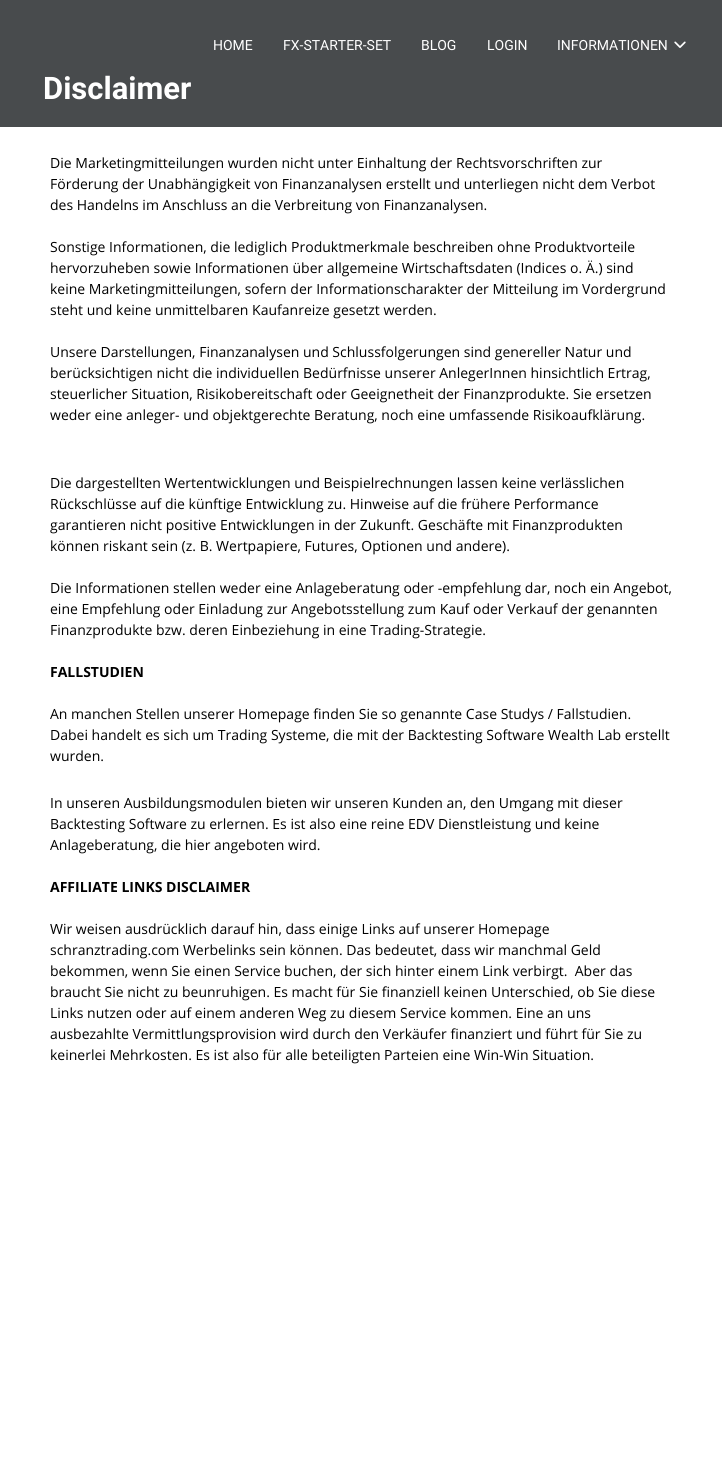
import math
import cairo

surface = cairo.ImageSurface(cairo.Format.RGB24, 722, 1462)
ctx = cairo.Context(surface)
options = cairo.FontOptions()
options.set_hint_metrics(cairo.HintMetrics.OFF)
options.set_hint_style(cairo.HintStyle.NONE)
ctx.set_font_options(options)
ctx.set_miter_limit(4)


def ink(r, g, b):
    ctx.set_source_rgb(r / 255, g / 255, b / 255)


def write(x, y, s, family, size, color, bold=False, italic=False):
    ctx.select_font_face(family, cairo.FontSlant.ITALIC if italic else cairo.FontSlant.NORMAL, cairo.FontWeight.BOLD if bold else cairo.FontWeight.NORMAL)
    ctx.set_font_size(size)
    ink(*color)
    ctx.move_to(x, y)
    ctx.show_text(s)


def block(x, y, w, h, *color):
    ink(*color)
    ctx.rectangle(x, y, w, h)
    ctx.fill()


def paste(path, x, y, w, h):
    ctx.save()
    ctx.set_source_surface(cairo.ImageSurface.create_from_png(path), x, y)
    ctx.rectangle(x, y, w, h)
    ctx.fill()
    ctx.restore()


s1 = dict(family="Roboto", size=14, color=(255, 255, 255))
s2 = dict(family="Roboto", size=31, color=(255, 255, 255), bold=True)
s3 = dict(family="Open Sans", size=14, color=(0, 0, 0))
s4 = dict(family="Open Sans", size=14, color=(0, 0, 0), bold=True)

ink(255, 255, 255)
ctx.paint()
block(0, 0, 722, 127, 72, 75, 77)
write(213, 50, "HOME", **s1)
write(283, 50, "FX-STARTER-SET", **s1)
write(421, 50, "BLOG", **s1)
write(487, 50, "LOGIN", **s1)
write(557, 50, "INFORMATIONEN", **s1)
paste("pic1.png", 674, 41, 12, 7)
write(43, 99, "Disclaimer", **s2)
write(50, 168, "Die Marketingmitteilungen wurden nicht unter Einhaltung der Rechtsvorschriften zur", **s3)
write(50, 189, "Förderung der Unabhängigkeit von Finanzanalysen erstellt und unterliegen nicht dem Verbot", **s3)
write(50, 210, "des Handelns im Anschluss an die Verbreitung von Finanzanalysen.", **s3)
write(50, 252, "Sonstige Informationen, die lediglich Produktmerkmale beschreiben ohne Produktvorteile", **s3)
write(50, 273, "hervorzuheben sowie Informationen über allgemeine Wirtschaftsdaten (Indices o. Ä.) sind", **s3)
write(50, 294, "keine Marketingmitteilungen, sofern der Informationscharakter der Mitteilung im Vordergrund", **s3)
write(50, 315, "steht und keine unmittelbaren Kaufanreize gesetzt werden.", **s3)
write(50, 357, "Unsere Darstellungen, Finanzanalysen und Schlussfolgerungen sind genereller Natur und", **s3)
write(50, 378, "berücksichtigen nicht die individuellen Bedürfnisse unserer AnlegerInnen hinsichtlich Ertrag,", **s3)
write(50, 399, "steuerlicher Situation, Risikobereitschaft oder Geeignetheit der Finanzprodukte. Sie ersetzen", **s3)
write(50, 420, "weder eine anleger- und objektgerechte Beratung, noch eine umfassende Risikoaufklärung.", **s3)
write(50, 488, "Die dargestellten Wertentwicklungen und Beispielrechnungen lassen keine verlässlichen", **s3)
write(50, 509, "Rückschlüsse auf die künftige Entwicklung zu. Hinweise auf die frühere Performance", **s3)
write(50, 530, "garantieren nicht positive Entwicklungen in der Zukunft. Geschäfte mit Finanzprodukten", **s3)
write(50, 551, "können riskant sein (z. B. Wertpapiere, Futures, Optionen und andere).", **s3)
write(50, 593, "Die Informationen stellen weder eine Anlageberatung oder -empfehlung dar, noch ein Angebot,", **s3)
write(50, 614, "eine Empfehlung oder Einladung zur Angebotsstellung zum Kauf oder Verkauf der genannten", **s3)
write(50, 635, "Finanzprodukte bzw. deren Einbeziehung in eine Trading-Strategie.", **s3)
write(50, 677, "FALLSTUDIEN", **s4)
write(50, 719, "An manchen Stellen unserer Homepage finden Sie so genannte Case Studys / Fallstudien.", **s3)
write(50, 740, "Dabei handelt es sich um Trading Systeme, die mit der Backtesting Software Wealth Lab erstellt", **s3)
write(50, 761, "wurden.", **s3)
write(50, 808, "In unseren Ausbildungsmodulen bieten wir unseren Kunden an, den Umgang mit dieser", **s3)
write(50, 829, "Backtesting Software zu erlernen. Es ist also eine reine EDV Dienstleistung und keine", **s3)
write(50, 850, "Anlageberatung, die hier angeboten wird.", **s3)
write(50, 892, "AFFILIATE LINKS DISCLAIMER", **s4)
write(50, 934, "Wir weisen ausdrücklich darauf hin, dass einige Links auf unserer Homepage", **s3)
write(50, 955, "schranztrading.com Werbelinks sein können. Das bedeutet, dass wir manchmal Geld", **s3)
write(50, 976, "bekommen, wenn Sie einen Service buchen, der sich hinter einem Link verbirgt.  Aber das", **s3)
write(50, 997, "braucht Sie nicht zu beunruhigen. Es macht für Sie finanziell keinen Unterschied, ob Sie diese", **s3)
write(50, 1018, "Links nutzen oder auf einem anderen Weg zu diesem Service kommen. Eine an uns", **s3)
write(50, 1039, "ausbezahlte Vermittlungsprovision wird durch den Verkäufer finanziert und führt für Sie zu", **s3)
write(50, 1060, "keinerlei Mehrkosten. Es ist also für alle beteiligten Parteien eine Win-Win Situation.", **s3)
surface.write_to_png("screenshot.png")
